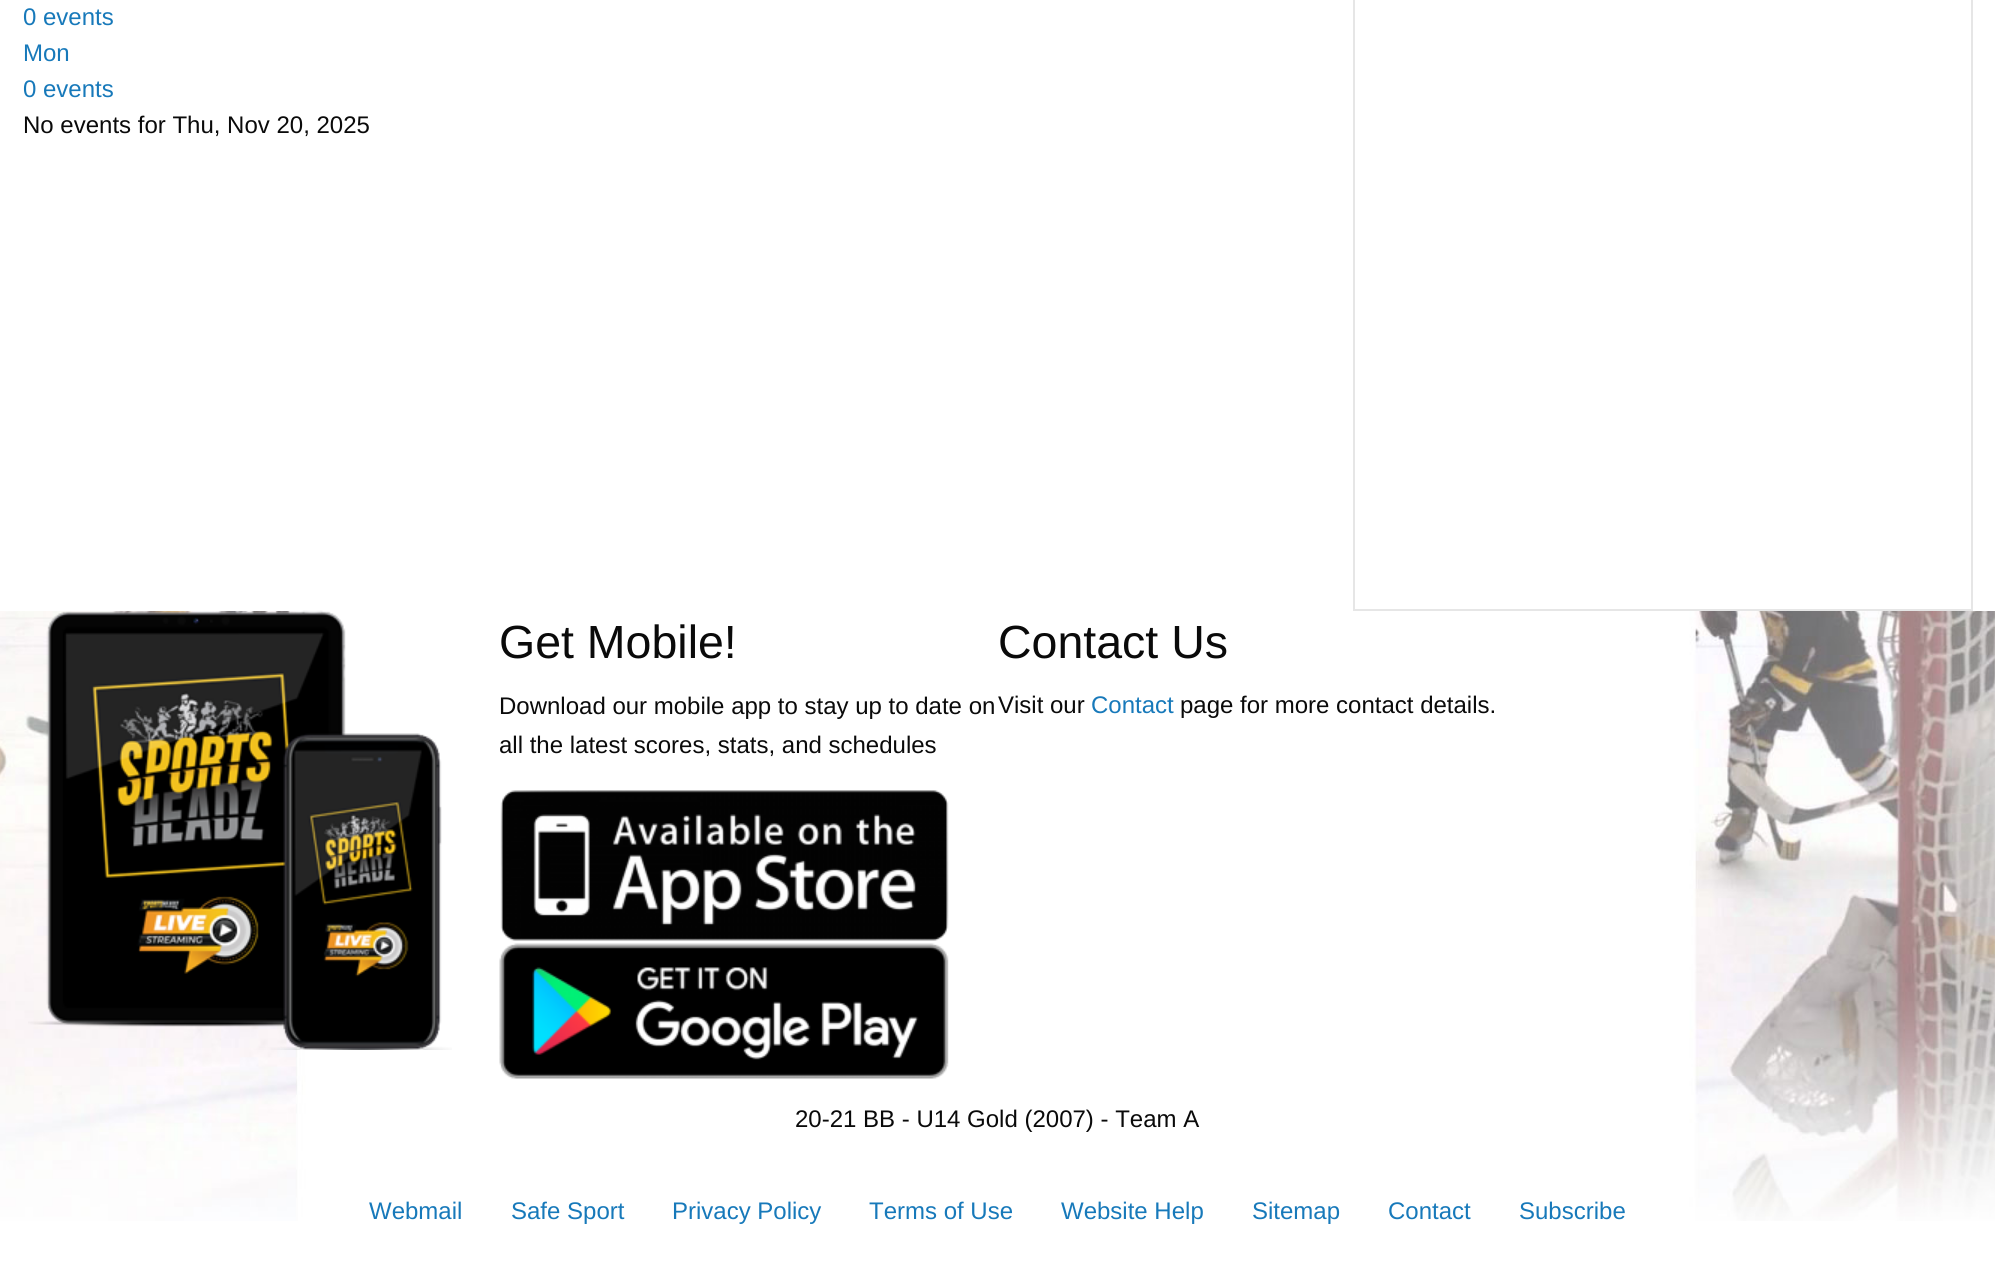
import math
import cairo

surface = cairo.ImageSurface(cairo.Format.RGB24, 1995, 1262)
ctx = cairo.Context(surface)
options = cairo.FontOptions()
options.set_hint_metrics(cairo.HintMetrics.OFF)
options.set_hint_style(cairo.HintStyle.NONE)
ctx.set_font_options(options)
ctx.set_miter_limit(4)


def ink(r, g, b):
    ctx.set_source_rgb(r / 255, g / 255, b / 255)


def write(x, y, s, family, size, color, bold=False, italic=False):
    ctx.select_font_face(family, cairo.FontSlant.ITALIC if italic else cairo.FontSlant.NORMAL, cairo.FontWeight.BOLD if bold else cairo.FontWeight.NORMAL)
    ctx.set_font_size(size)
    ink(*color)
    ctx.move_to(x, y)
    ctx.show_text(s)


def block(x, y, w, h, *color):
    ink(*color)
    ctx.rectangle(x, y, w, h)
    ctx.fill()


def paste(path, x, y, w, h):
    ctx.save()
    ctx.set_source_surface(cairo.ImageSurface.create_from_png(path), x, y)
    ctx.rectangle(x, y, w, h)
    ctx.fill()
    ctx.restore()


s1 = dict(family="Liberation Sans", size=24, color=(23, 121, 186))
s2 = dict(family="Liberation Sans", size=24, color=(10, 10, 10))
s3 = dict(family="Liberation Sans", size=46.5, color=(10, 10, 10))

ink(255, 255, 255)
ctx.paint()
paste("pic1.png", 0, 611, 1995, 610)
write(23, 25, "0 events", **s1)
write(23, 61, "Mon", **s1)
write(23, 97, "0 events", **s1)
write(23, 133, "No events for Thu, Nov 20, 2025", **s2)
block(1971, 0, 2, 611, 230, 230, 230)
block(1353, 609, 620, 2, 230, 230, 230)
block(1353, 0, 2, 611, 230, 230, 230)
paste("pic2.png", 28, 610, 424, 440)
write(499, 658, "Get Mobile!", **s3)
write(499, 714, "Download our mobile app to stay up to date on", **s2)
write(499, 753, "all the latest scores, stats, and schedules", **s2)
paste("pic3.png", 500, 790, 449, 151)
paste("pic4.png", 499, 943, 450, 136)
write(998, 658, "Contact Us", **s3)
write(998, 713, "Visit our", **s2)
write(1091, 713, "Contact", **s1)
write(1180, 713, "page for more contact details.", **s2)
write(795, 1127, "20-21 BB - U14 Gold (2007) - Team A", **s2)
write(369, 1219, "Webmail", **s1)
write(511, 1219, "Safe Sport", **s1)
write(672, 1219, "Privacy Policy", **s1)
write(869, 1219, "Terms of Use", **s1)
write(1061, 1219, "Website Help", **s1)
write(1252, 1219, "Sitemap", **s1)
write(1388, 1219, "Contact", **s1)
write(1519, 1219, "Subscribe", **s1)
surface.write_to_png("screenshot.png")
